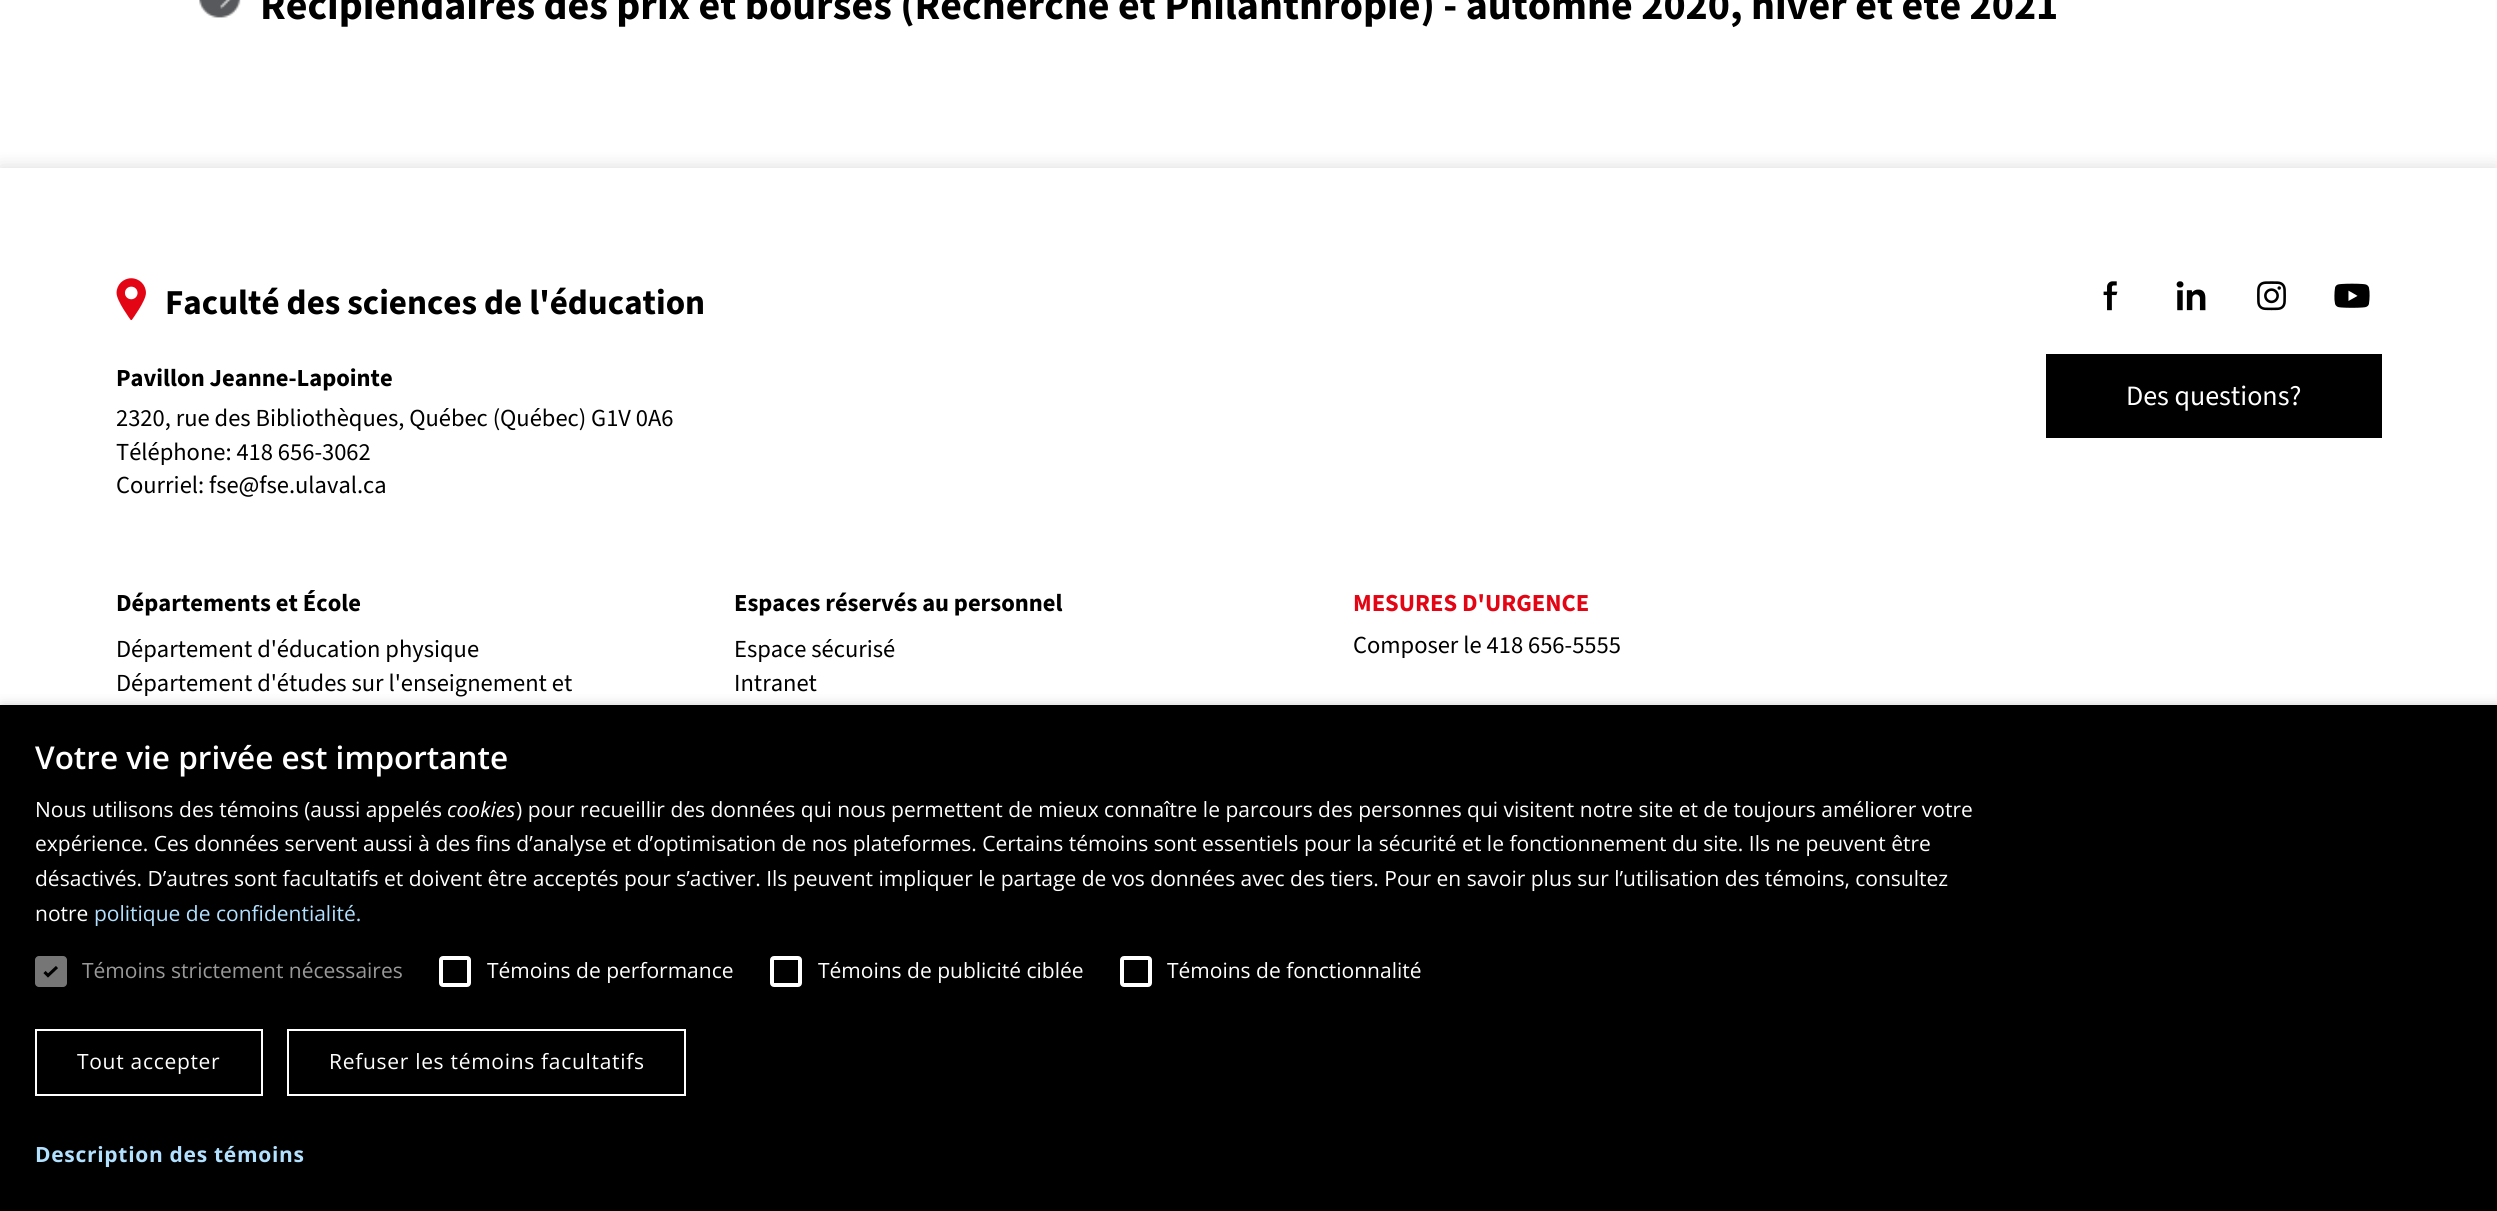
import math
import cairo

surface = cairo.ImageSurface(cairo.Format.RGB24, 2497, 1211)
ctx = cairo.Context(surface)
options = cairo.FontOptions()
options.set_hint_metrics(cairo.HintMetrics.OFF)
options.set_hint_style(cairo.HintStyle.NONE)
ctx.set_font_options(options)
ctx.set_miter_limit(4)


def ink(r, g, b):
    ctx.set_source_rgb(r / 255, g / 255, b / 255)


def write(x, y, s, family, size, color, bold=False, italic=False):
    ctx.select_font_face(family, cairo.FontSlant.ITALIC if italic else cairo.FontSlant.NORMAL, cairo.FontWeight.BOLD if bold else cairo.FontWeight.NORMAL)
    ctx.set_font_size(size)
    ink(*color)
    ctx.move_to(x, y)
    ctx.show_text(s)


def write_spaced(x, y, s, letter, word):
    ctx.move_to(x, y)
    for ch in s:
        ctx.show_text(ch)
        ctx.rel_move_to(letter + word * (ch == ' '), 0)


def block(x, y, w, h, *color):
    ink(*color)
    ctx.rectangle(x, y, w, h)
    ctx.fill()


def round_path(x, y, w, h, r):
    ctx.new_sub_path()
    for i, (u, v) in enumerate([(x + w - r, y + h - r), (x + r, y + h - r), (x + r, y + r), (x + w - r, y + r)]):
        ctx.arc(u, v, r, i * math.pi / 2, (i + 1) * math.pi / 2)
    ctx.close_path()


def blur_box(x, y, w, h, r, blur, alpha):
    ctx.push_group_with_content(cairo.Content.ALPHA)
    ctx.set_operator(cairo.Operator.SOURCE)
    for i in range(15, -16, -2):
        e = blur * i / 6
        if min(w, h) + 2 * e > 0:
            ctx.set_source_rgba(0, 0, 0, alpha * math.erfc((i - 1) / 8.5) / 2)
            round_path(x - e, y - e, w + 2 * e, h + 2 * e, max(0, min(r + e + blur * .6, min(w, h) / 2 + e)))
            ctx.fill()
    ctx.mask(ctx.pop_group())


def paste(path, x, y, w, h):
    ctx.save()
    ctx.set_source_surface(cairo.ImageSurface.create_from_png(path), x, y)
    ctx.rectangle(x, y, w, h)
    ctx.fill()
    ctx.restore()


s1 = dict(family="Source Sans Pro", size=42, color=(0, 0, 0), bold=True)
s2 = dict(family="Source Sans 3", size=35, color=(0, 0, 0), bold=True)
s3 = dict(family="Source Sans 3", size=24.5, color=(0, 0, 0), bold=True)
s4 = dict(family="Source Sans 3", size=24.5, color=(0, 0, 0))
s5 = dict(family="Source Sans 3", size=28, color=(255, 255, 255))
s6 = dict(family="Source Sans 3", size=24.5, color=(227, 5, 19), bold=True)
s7 = dict(family="Open Sans SemiBold", size=31.5, color=(255, 255, 255))
s8 = dict(family="Open Sans", size=21, color=(255, 255, 255))
s9 = dict(family="Open Sans", size=21, color=(255, 255, 255), italic=True)
s10 = dict(family="Open Sans", size=21, color=(178, 224, 255))
s11 = dict(family="Open Sans", size=21, color=(153, 153, 153))

ink(255, 255, 255)
ctx.paint()
paste("pic1.png", 199, 0, 42, 18)
write(260, 19, "Récipiendaires des prix et bourses (Recherche et Philanthropie) - automne 2020, hiver et été 2021", **s1)
ink(0, 0, 0)
blur_box(0, 168, 2497, 1043, 0, 9, 0.15)
block(0, 168, 2497, 537, 255, 255, 255)
paste("pic2.png", 116, 278, 30, 42)
write(165, 314, "Faculté des sciences de l'éducation", **s2)
write(116, 386, "Pavillon Jeanne-Lapointe", **s3)
write(116, 426, "2320, rue des Bibliothèques, Québec (Québec) G1V 0A6", **s4)
write(116, 460, "Téléphone: 418 656-3062", **s4)
write(116, 493, "Courriel: fse@fse.ulaval.ca", **s4)
paste("pic3.png", 2103, 281, 15, 30)
paste("pic4.png", 2176, 281, 30, 30)
paste("pic5.png", 2257, 281, 29, 30)
paste("pic6.png", 2334, 283, 36, 25)
block(2046, 354, 336, 84, 0, 0, 0)
write(2126, 405, "Des questions?", **s5)
write(116, 611, "Départements et École", **s3)
write(116, 657, "Département d'éducation physique", **s4)
write(116, 691, "Département d'études sur l'enseignement et", **s4)
write(734, 611, "Espaces réservés au personnel", **s3)
write(734, 657, "Espace sécurisé", **s4)
write(734, 691, "Intranet", **s4)
write(1353, 611, "MESURES D'URGENCE", **s6)
write(1353, 653, "Composer le 418 656-5555", **s4)
ink(0, 0, 0)
blur_box(2, 709, 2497, 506, 0, 7, 0.35)
block(0, 705, 2497, 506, 0, 0, 0)
write(35, 769, "Votre vie privée est importante", **s7)
write(35, 817, "Nous utilisons des témoins (aussi appelés", **s8)
write(447, 817, "cookies", **s9)
write(516, 817, ") pour recueillir des données qui nous permettent de mieux connaître le parcours des personnes qui visitent notre site et de toujours améliorer votre", **s8)
write(35, 851, "expérience. Ces données servent aussi à des fins d’analyse et d’optimisation de nos plateformes. Certains témoins sont essentiels pour la sécurité et le fonctionnement du site. Ils ne peuvent être", **s8)
write(35, 886, "désactivés. D’autres sont facultatifs et doivent être acceptés pour s’activer. Ils peuvent impliquer le partage de vos données avec des tiers. Pour en savoir plus sur l’utilisation des témoins, consultez", **s8)
write(35, 921, "notre", **s8)
write(94, 921, "politique de confidentialité.", **s10)
ink(118, 118, 118)
round_path(35, 956, 32, 31, 4)
ctx.fill()
ctx.new_path()
ctx.move_to(44.5, 972)
ctx.line_to(48, 975.5)
ctx.line_to(57, 967)
ink(0, 0, 0)
ctx.set_line_width(3.1)
ctx.stroke()
write(82, 978, "Témoins strictement nécessaires", **s11)
round_path(441, 958, 28, 27, 2)
ink(255, 255, 255)
ctx.set_line_width(4)
ctx.stroke()
write(487, 978, "Témoins de performance", **s8)
round_path(772, 958, 28, 27, 2)
ctx.stroke()
write(818, 978, "Témoins de publicité ciblée", **s8)
round_path(1122, 958, 28, 27, 2)
ctx.stroke()
write(1167, 978, "Témoins de fonctionnalité", **s8)
ctx.rectangle(36, 1030, 226, 65)
ctx.set_line_width(2)
ctx.stroke()
write_spaced(77, 1069, "Tout accepter", 0.7, 0)
ctx.rectangle(288, 1030, 397, 65)
ctx.stroke()
write_spaced(329, 1069, "Refuser les témoins facultatifs", 0.7, 0)
ctx.select_font_face("Open Sans", cairo.FontSlant.NORMAL, cairo.FontWeight.BOLD)
ink(178, 224, 255)
write_spaced(35, 1162, "Description des témoins", 0.7, 0)
surface.write_to_png("screenshot.png")
